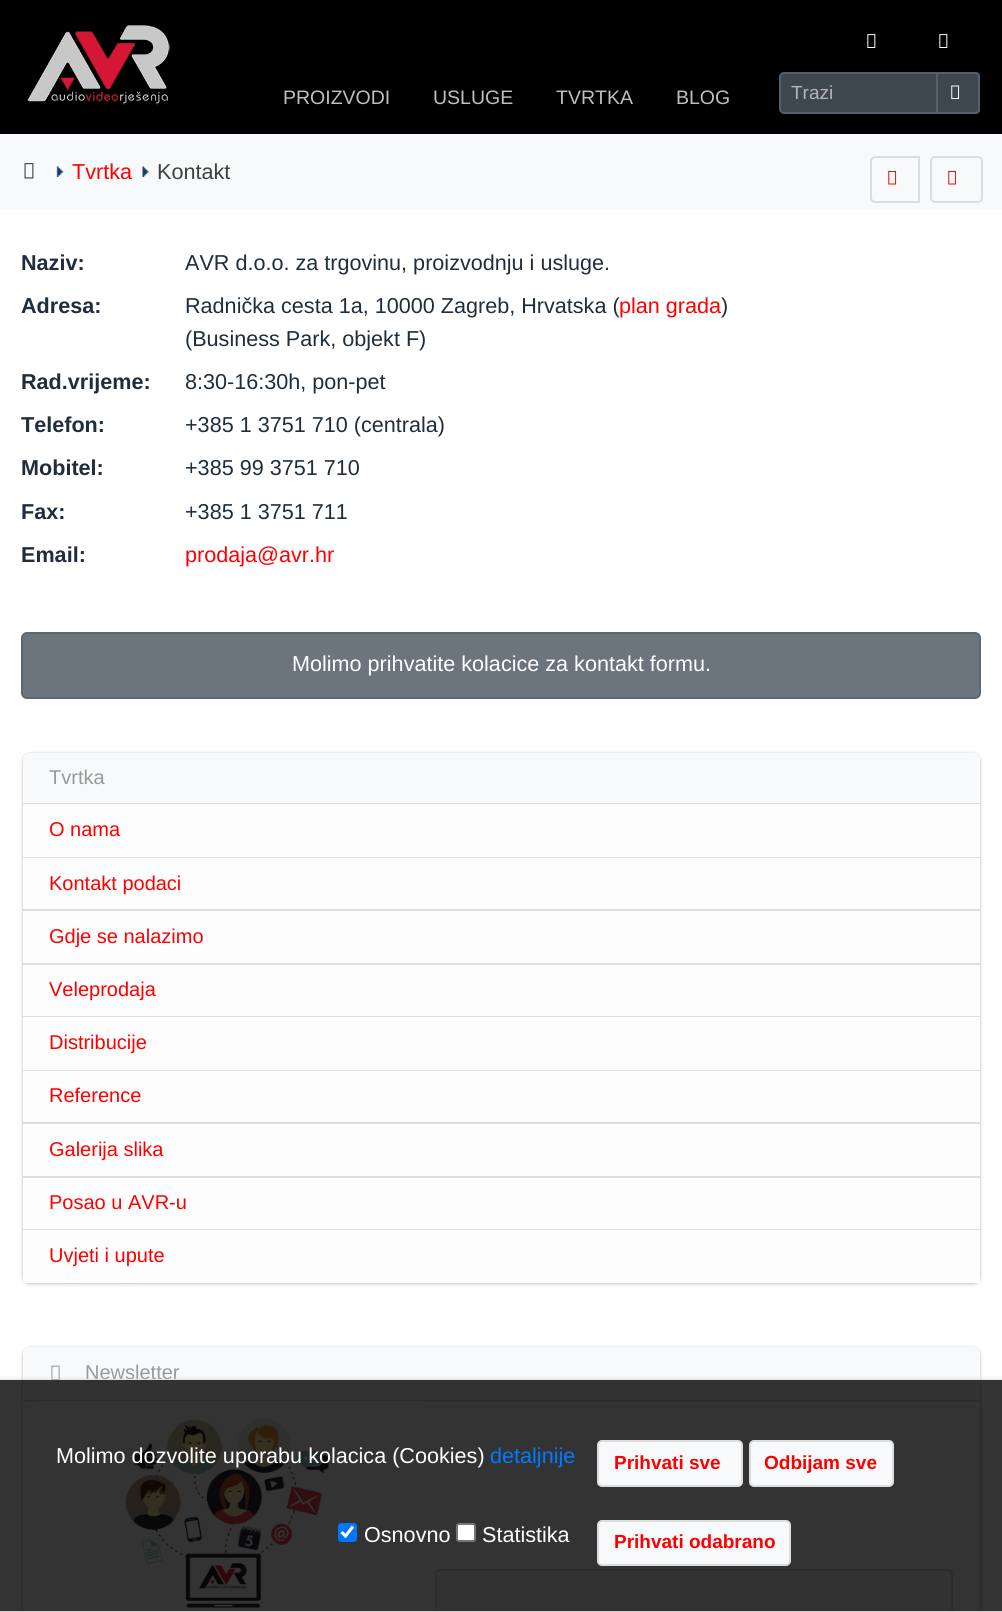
import math
import cairo

surface = cairo.ImageSurface(cairo.Format.RGB24, 1002, 1612)
ctx = cairo.Context(surface)
options = cairo.FontOptions()
options.set_hint_metrics(cairo.HintMetrics.OFF)
options.set_hint_style(cairo.HintStyle.NONE)
ctx.set_font_options(options)
ctx.set_miter_limit(4)


def ink(r, g, b):
    ctx.set_source_rgb(r / 255, g / 255, b / 255)


def write(x, y, s, family, size, color, bold=False, italic=False):
    ctx.select_font_face(family, cairo.FontSlant.ITALIC if italic else cairo.FontSlant.NORMAL, cairo.FontWeight.BOLD if bold else cairo.FontWeight.NORMAL)
    ctx.set_font_size(size)
    ink(*color)
    ctx.move_to(x, y)
    ctx.show_text(s)


def block(x, y, w, h, *color):
    ink(*color)
    ctx.rectangle(x, y, w, h)
    ctx.fill()


def round_path(x, y, w, h, r):
    ctx.new_sub_path()
    for i, (u, v) in enumerate([(x + w - r, y + h - r), (x + r, y + h - r), (x + r, y + r), (x + w - r, y + r)]):
        ctx.arc(u, v, r, i * math.pi / 2, (i + 1) * math.pi / 2)
    ctx.close_path()


def blur_box(x, y, w, h, r, blur, alpha):
    ctx.push_group_with_content(cairo.Content.ALPHA)
    ctx.set_operator(cairo.Operator.SOURCE)
    for i in range(15, -16, -2):
        e = blur * i / 6
        if min(w, h) + 2 * e > 0:
            ctx.set_source_rgba(0, 0, 0, alpha * math.erfc((i - 1) / 8.5) / 2)
            round_path(x - e, y - e, w + 2 * e, h + 2 * e, max(0, min(r + e + blur * .6, min(w, h) / 2 + e)))
            ctx.fill()
    ctx.mask(ctx.pop_group())


def paste(path, x, y, w, h):
    ctx.save()
    ctx.set_source_surface(cairo.ImageSurface.create_from_png(path), x, y)
    ctx.rectangle(x, y, w, h)
    ctx.fill()
    ctx.restore()


s1 = dict(family="Liberation Sans", size=19.5, color=(191, 191, 191))
s2 = dict(family="Liberation Sans", size=19, color=(178, 181, 184))
s3 = dict(family="Liberation Sans", size=21.6, color=(255, 0, 0))
s4 = dict(family="Liberation Sans", size=21.6, color=(64, 64, 64))
s5 = dict(family="Liberation Sans", size=21.6, color=(31, 45, 61), bold=True)
s6 = dict(family="Liberation Sans", size=21.6, color=(31, 45, 61))
s7 = dict(family="Liberation Sans", size=21.6, color=(255, 255, 255))
s8 = dict(family="Liberation Sans", size=20, color=(153, 153, 153))
s9 = dict(family="Liberation Sans", size=20, color=(255, 0, 0))
s10 = dict(family="Liberation Sans", size=21.6, color=(0, 123, 255))
s11 = dict(family="Liberation Sans", size=19, color=(255, 0, 0), bold=True)

ink(255, 255, 255)
ctx.paint()
block(0, 0, 1002, 134, 0, 0, 0)
paste("pic1.png", 27, 25, 143, 80)
paste("pic2.png", 867, 34, 9, 14)
paste("pic2.png", 939, 34, 9, 14)
write(283, 104, "PROIZVODI", **s1)
write(433, 104, "USLUGE", **s1)
write(556, 104, "TVRTKA", **s1)
write(676, 104, "BLOG", **s1)
ink(63, 71, 78)
ctx.new_path()
ctx.move_to(784, 73)
ctx.line_to(937, 73)
ctx.line_to(937, 113)
ctx.line_to(784, 113)
ctx.curve_to(782, 113, 780, 111, 780, 109)
ctx.line_to(780, 77)
ctx.curve_to(780, 75, 782, 73, 784, 73)
ctx.close_path()
ctx.fill_preserve()
ink(86, 96, 106)
ctx.stroke()
write(791, 99, "Trazi", **s2)
ink(63, 71, 78)
ctx.new_path()
ctx.move_to(938, 72)
ctx.line_to(975, 72)
ctx.curve_to(978, 72, 980, 74, 980, 77)
ctx.line_to(980, 109)
ctx.curve_to(980, 112, 978, 114, 975, 114)
ctx.line_to(938, 114)
ctx.close_path()
ctx.fill()
ink(86, 96, 106)
ctx.set_fill_rule(cairo.FillRule.EVEN_ODD)
ctx.new_path()
ctx.move_to(938, 72)
ctx.line_to(975, 72)
ctx.curve_to(978, 72, 980, 74, 980, 76)
ctx.line_to(980, 110)
ctx.curve_to(980, 112, 978, 114, 975, 114)
ctx.line_to(938, 114)
ctx.close_path()
ctx.move_to(938, 74)
ctx.line_to(975, 74)
ctx.curve_to(977, 74, 978, 75, 978, 76)
ctx.line_to(978, 110)
ctx.curve_to(978, 111, 977, 112, 975, 112)
ctx.line_to(938, 112)
ctx.close_path()
ctx.fill()
paste("pic3.png", 951, 85, 9, 14)
block(0, 134, 1002, 76, 248, 249, 250)
paste("pic4.png", 24, 163, 10, 16)
paste("pic5.png", 56, 166, 8, 11)
write(72, 179, "Tvrtka", **s3)
paste("pic6.png", 142, 166, 7, 11)
write(157, 179, "Kontakt", **s4)
ctx.new_path()
ctx.move_to(875, 157)
ctx.line_to(919, 157)
ctx.line_to(919, 202)
ctx.line_to(875, 202)
ctx.curve_to(873, 202, 871, 200, 871, 198)
ctx.line_to(871, 161)
ctx.curve_to(871, 159, 873, 157, 875, 157)
ctx.close_path()
ink(221, 221, 221)
ctx.stroke()
paste("pic7.png", 888, 171, 9, 14)
round_path(931, 157, 51, 45, 4)
ctx.stroke()
paste("pic7.png", 948, 171, 9, 14)
write(21, 270, "Naziv:", **s5)
write(185, 270, "AVR d.o.o. za trgovinu, proizvodnju i usluge.", **s6)
write(21, 313, "Adresa:", **s5)
write(185, 313, "Radnička cesta 1a, 10000 Zagreb, Hrvatska (", **s6)
write(619, 313, "plan grada", **s3)
write(721, 313, ")", **s6)
write(185, 346, "(Business Park, objekt F)", **s6)
write(21, 389, "Rad.vrijeme:", **s5)
write(185, 389, "8:30-16:30h, pon-pet", **s6)
write(21, 432, "Telefon:", **s5)
write(185, 432, "+385 1 3751 710 (centrala)", **s6)
write(21, 475, "Mobitel:", **s5)
write(185, 475, "+385 99 3751 710", **s6)
write(21, 519, "Fax:", **s5)
write(185, 519, "+385 1 3751 711", **s6)
write(21, 562, "Email:", **s5)
write(185, 562, "prodaja@avr.hr", **s3)
ink(108, 117, 125)
round_path(22, 633, 958, 65, 5)
ctx.fill_preserve()
ink(96, 104, 111)
ctx.stroke()
write(292, 671, "Molimo prihvatite kolacice za kontakt formu.", **s7)
ink(0, 0, 0)
blur_box(23, 755, 957, 529, 6, 2, 0.2)
blur_box(23, 753, 957, 530, 6, 1, 0.12)
ink(248, 249, 250)
ctx.new_path()
ctx.move_to(29, 753)
ctx.line_to(974, 753)
ctx.curve_to(977.5, 753, 980, 755.5, 980, 759)
ctx.line_to(980, 804)
ctx.line_to(23, 804)
ctx.line_to(23, 759)
ctx.curve_to(23, 755.5, 25.5, 753, 29, 753)
ctx.close_path()
ctx.fill()
ctx.set_source_rgba(0, 0, 0, 0.12)
ctx.rectangle(23, 803, 957, 1)
ctx.fill()
write(49, 784, "Tvrtka", **s8)
block(23, 804, 957, 53, 253, 253, 254)
block(23, 857, 957, 1, 222, 222, 223)
write(49, 836, "O nama", **s9)
block(23, 858, 957, 51, 253, 253, 254)
block(23, 909, 957, 2, 221, 221, 222)
write(49, 890, "Kontakt podaci", **s9)
block(23, 911, 957, 52, 253, 253, 254)
block(23, 963, 957, 2, 221, 221, 222)
write(49, 943, "Gdje se nalazimo", **s9)
block(23, 965, 957, 51, 253, 253, 254)
block(23, 1016, 957, 1, 222, 222, 223)
write(49, 996, "Veleprodaja", **s9)
block(23, 1017, 957, 53, 253, 253, 254)
block(23, 1070, 957, 1, 222, 222, 223)
write(49, 1049, "Distribucije", **s9)
block(23, 1071, 957, 51, 253, 253, 254)
block(23, 1122, 957, 2, 221, 221, 222)
write(49, 1102, "Reference", **s9)
block(23, 1124, 957, 52, 253, 253, 254)
block(23, 1176, 957, 2, 221, 221, 222)
write(49, 1156, "Galerija slika", **s9)
block(23, 1178, 957, 51, 253, 253, 254)
block(23, 1229, 957, 1, 222, 222, 223)
write(49, 1209, "Posao u AVR-u", **s9)
block(23, 1230, 957, 53, 253, 253, 254)
write(49, 1262, "Uvjeti i upute", **s9)
ink(0, 0, 0)
blur_box(23, 1349, 957, 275, 6, 2, 0.2)
blur_box(23, 1347, 957, 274, 6, 1, 0.12)
ink(248, 249, 250)
ctx.new_path()
ctx.move_to(29, 1347)
ctx.line_to(974, 1347)
ctx.curve_to(977.5, 1347, 980, 1349.5, 980, 1353)
ctx.line_to(980, 1401)
ctx.line_to(23, 1401)
ctx.line_to(23, 1353)
ctx.curve_to(23, 1349.5, 25.5, 1347, 29, 1347)
ctx.close_path()
ctx.fill()
block(23, 1401, 957, 210, 253, 253, 254)
ctx.set_source_rgba(0, 0, 0, 0.12)
ctx.rectangle(23, 1400, 957, 2)
ctx.fill()
paste("pic8.png", 51, 1365, 9, 15)
write(85, 1379, "Newsletter", **s8)
block(38, 1401, 387, 1, 255, 255, 255)
paste("pic9.png", 125, 1418, 205, 190)
ink(248, 249, 250)
round_path(436, 1570, 516, 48, 4)
ctx.fill_preserve()
ink(221, 221, 221)
ctx.stroke()
ctx.save()
ctx.set_fill_rule(cairo.FillRule.WINDING)
ctx.rectangle(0, 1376, 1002, 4)
ctx.clip()
ink(204, 204, 204)
blur_box(0, 1380, 1002, 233, 0, 2, 1)
ctx.restore()
ctx.set_source_rgba(0, 0, 0, 0.8)
ctx.rectangle(0, 1380, 1002, 231)
ctx.fill()
block(0, 1611, 1002, 1, 204, 204, 204)
write(56, 1463, "Molimo dozvolite uporabu kolacica (Cookies)", **s7)
write(490, 1463, "detaljnije", **s10)
ink(248, 249, 250)
round_path(598, 1441, 144, 45, 4)
ctx.fill_preserve()
ink(221, 221, 221)
ctx.stroke()
write(614, 1469, "Prihvati sve", **s11)
ink(248, 249, 250)
round_path(750, 1441, 143, 45, 4)
ctx.fill_preserve()
ink(221, 221, 221)
ctx.stroke()
write(764, 1469, "Odbijam sve", **s11)
ink(0, 117, 255)
round_path(338, 1523, 19, 19, 3)
ctx.fill()
ctx.new_path()
ctx.move_to(341.5, 1532)
ctx.line_to(345.5, 1536)
ctx.line_to(353, 1526.5)
ink(255, 255, 255)
ctx.set_line_width(3.1)
ctx.stroke()
write(364, 1542, "Osnovno", **s7)
round_path(457, 1524, 18, 17, 2)
ctx.fill_preserve()
ink(118, 118, 118)
ctx.set_line_width(2)
ctx.stroke()
write(482, 1542, "Statistika", **s7)
ink(248, 249, 250)
round_path(598, 1521, 192, 44, 4)
ctx.fill_preserve()
ink(221, 221, 221)
ctx.stroke()
write(614, 1548, "Prihvati odabrano", **s11)
surface.write_to_png("screenshot.png")
